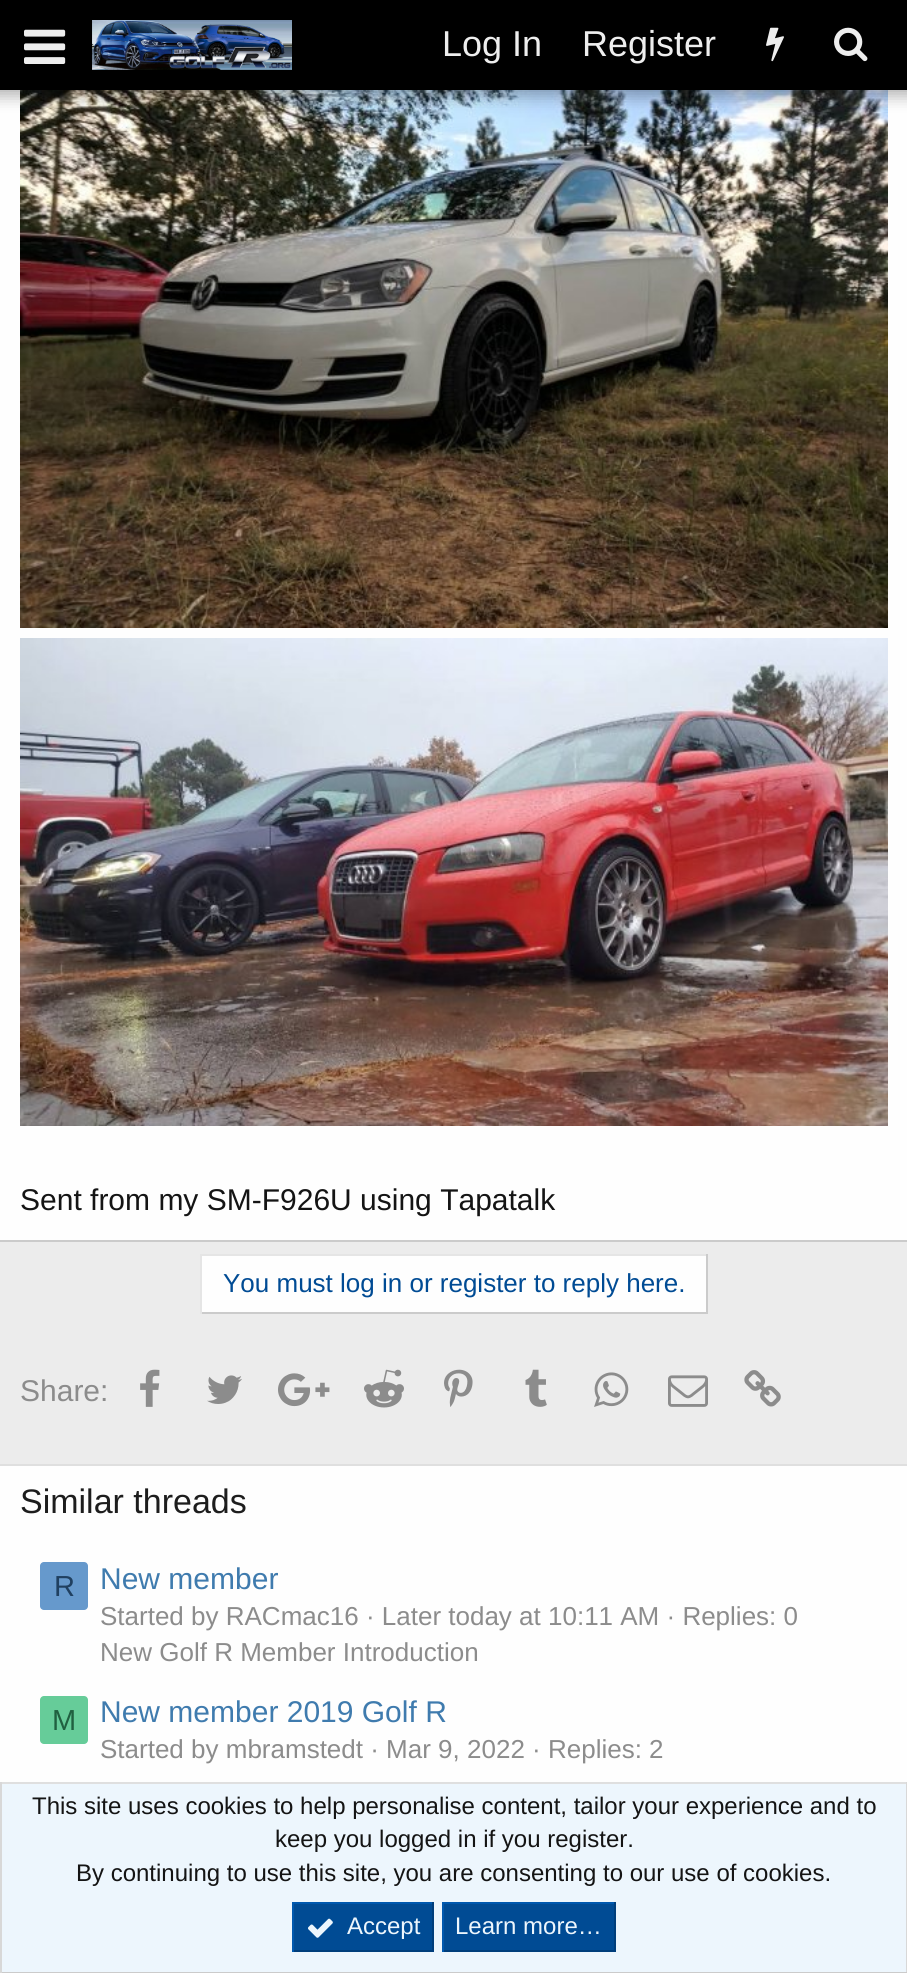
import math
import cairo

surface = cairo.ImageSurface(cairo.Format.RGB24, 907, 1973)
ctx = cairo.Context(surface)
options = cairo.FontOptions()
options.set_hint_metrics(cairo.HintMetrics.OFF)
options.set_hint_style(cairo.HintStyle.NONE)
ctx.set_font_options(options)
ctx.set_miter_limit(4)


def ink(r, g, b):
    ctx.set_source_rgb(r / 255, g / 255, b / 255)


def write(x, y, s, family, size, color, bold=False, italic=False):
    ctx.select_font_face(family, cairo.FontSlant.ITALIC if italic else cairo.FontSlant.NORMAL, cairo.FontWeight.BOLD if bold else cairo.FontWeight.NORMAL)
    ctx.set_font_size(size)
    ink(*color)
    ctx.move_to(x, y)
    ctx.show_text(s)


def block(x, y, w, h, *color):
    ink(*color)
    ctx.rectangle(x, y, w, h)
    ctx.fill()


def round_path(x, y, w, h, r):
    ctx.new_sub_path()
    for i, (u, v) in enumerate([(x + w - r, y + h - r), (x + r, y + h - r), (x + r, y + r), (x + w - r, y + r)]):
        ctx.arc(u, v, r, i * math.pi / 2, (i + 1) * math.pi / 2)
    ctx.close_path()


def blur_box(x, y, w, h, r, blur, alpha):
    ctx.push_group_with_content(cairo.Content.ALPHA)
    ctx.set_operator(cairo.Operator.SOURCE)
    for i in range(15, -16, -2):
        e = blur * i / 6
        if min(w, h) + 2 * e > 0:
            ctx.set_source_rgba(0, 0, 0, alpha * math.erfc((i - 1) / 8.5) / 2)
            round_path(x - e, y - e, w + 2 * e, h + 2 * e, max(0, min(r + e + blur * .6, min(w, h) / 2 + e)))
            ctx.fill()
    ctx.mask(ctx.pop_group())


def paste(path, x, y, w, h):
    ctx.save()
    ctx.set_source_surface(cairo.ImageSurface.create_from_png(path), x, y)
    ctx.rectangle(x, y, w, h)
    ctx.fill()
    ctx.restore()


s1 = dict(family="Liberation Sans", size=36, color=(238, 238, 238))
s2 = dict(family="Liberation Sans", size=30, color=(20, 20, 20))
s3 = dict(family="Liberation Sans", size=26, color=(0, 75, 148))
s4 = dict(family="Liberation Sans", size=30, color=(140, 140, 140))
s5 = dict(family="Liberation Sans", size=34, color=(29, 29, 29))
s6 = dict(family="Liberation Sans", size=29, color=(32, 64, 96))
s7 = dict(family="Liberation Sans", size=30, color=(63, 123, 174))
s8 = dict(family="Liberation Sans", size=26, color=(140, 140, 140))
s9 = dict(family="Liberation Sans", size=29, color=(32, 96, 64))
s10 = dict(family="Liberation Sans", size=24, color=(20, 20, 20))
s11 = dict(family="Liberation Sans", size=24, color=(237, 246, 253))

ink(236, 236, 236)
ctx.paint()
block(0, 90, 907, 1150, 254, 254, 254)
paste("pic5.png", 20, 90, 868, 538)
ink(0, 0, 0)
blur_box(-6, -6, 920, 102, 0, 8, 0.3)
block(0, 0, 907, 90, 0, 0, 0)
paste("pic1.png", 24, 29, 42, 35)
paste("pic2.png", 92, 20, 200, 50)
write(442, 56, "Log In", **s1)
write(582, 56, "Register", **s1)
paste("pic3.png", 766, 27, 18, 35)
paste("pic4.png", 834, 27, 34, 35)
block(0, 1240, 907, 2, 203, 203, 203)
paste("pic6.png", 20, 638, 868, 488)
write(20, 1210, "Sent from my SM-F926U using Tapatalk", **s2)
block(202, 1256, 504, 56, 254, 254, 254)
block(200, 1254, 508, 2, 229, 229, 229)
block(706, 1254, 2, 60, 203, 203, 203)
block(200, 1312, 508, 2, 203, 203, 203)
block(200, 1254, 2, 60, 229, 229, 229)
write(223, 1292, "You must log in or register to reply here.", **s3)
write(20, 1401, "Share:", **s4)
paste("pic7.png", 140, 1369, 20, 38)
paste("pic8.png", 207, 1375, 35, 29)
paste("pic9.png", 278, 1373, 52, 34)
paste("pic10.png", 364, 1369, 40, 39)
paste("pic11.png", 444, 1369, 29, 38)
paste("pic12.png", 525, 1369, 22, 38)
paste("pic13.png", 594, 1372, 35, 35)
paste("pic14.png", 668, 1375, 40, 32)
paste("pic15.png", 744, 1370, 37, 37)
block(0, 1466, 907, 316, 254, 254, 254)
block(0, 1464, 907, 2, 223, 223, 223)
write(20, 1513, "Similar threads", **s5)
ink(102, 153, 204)
round_path(40, 1562, 48, 48, 4)
ctx.fill()
write(54, 1596, "R", **s6)
write(100, 1589, "New member", **s7)
write(100, 1625, "Started by RACmac16 · Later today at 10:11 AM · Replies: 0", **s8)
write(100, 1661, "New Golf R Member Introduction", **s8)
ink(102, 204, 153)
round_path(40, 1696, 48, 48, 4)
ctx.fill()
write(52, 1730, "M", **s9)
write(100, 1722, "New member 2019 Golf R", **s7)
write(100, 1758, "Started by mbramstedt · Mar 9, 2022 · Replies: 2", **s8)
block(2, 1784, 904, 188, 237, 246, 253)
block(0, 1782, 907, 2, 223, 223, 223)
block(906, 1782, 1, 191, 216, 216, 216)
block(0, 1972, 907, 1, 203, 203, 203)
block(0, 1782, 2, 191, 216, 216, 216)
write(32, 1814, "This site uses cookies to help personalise content, tailor your experience and to", **s10)
write(275, 1847, "keep you logged in if you register.", **s10)
write(76, 1881, "By continuing to use this site, you are consenting to our use of cookies.", **s10)
block(294, 1904, 138, 46, 0, 75, 148)
block(292, 1902, 142, 2, 0, 88, 174)
block(432, 1902, 2, 50, 0, 62, 123)
block(292, 1950, 142, 2, 0, 62, 123)
block(292, 1902, 2, 50, 0, 88, 174)
paste("pic16.png", 308, 1918, 25, 20)
write(347, 1934, "Accept", **s11)
block(444, 1904, 170, 46, 0, 75, 148)
block(442, 1902, 174, 2, 0, 88, 174)
block(614, 1902, 2, 50, 0, 62, 123)
block(442, 1950, 174, 2, 0, 62, 123)
block(442, 1902, 2, 50, 0, 88, 174)
write(455, 1934, "Learn more…", **s11)
surface.write_to_png("screenshot.png")
